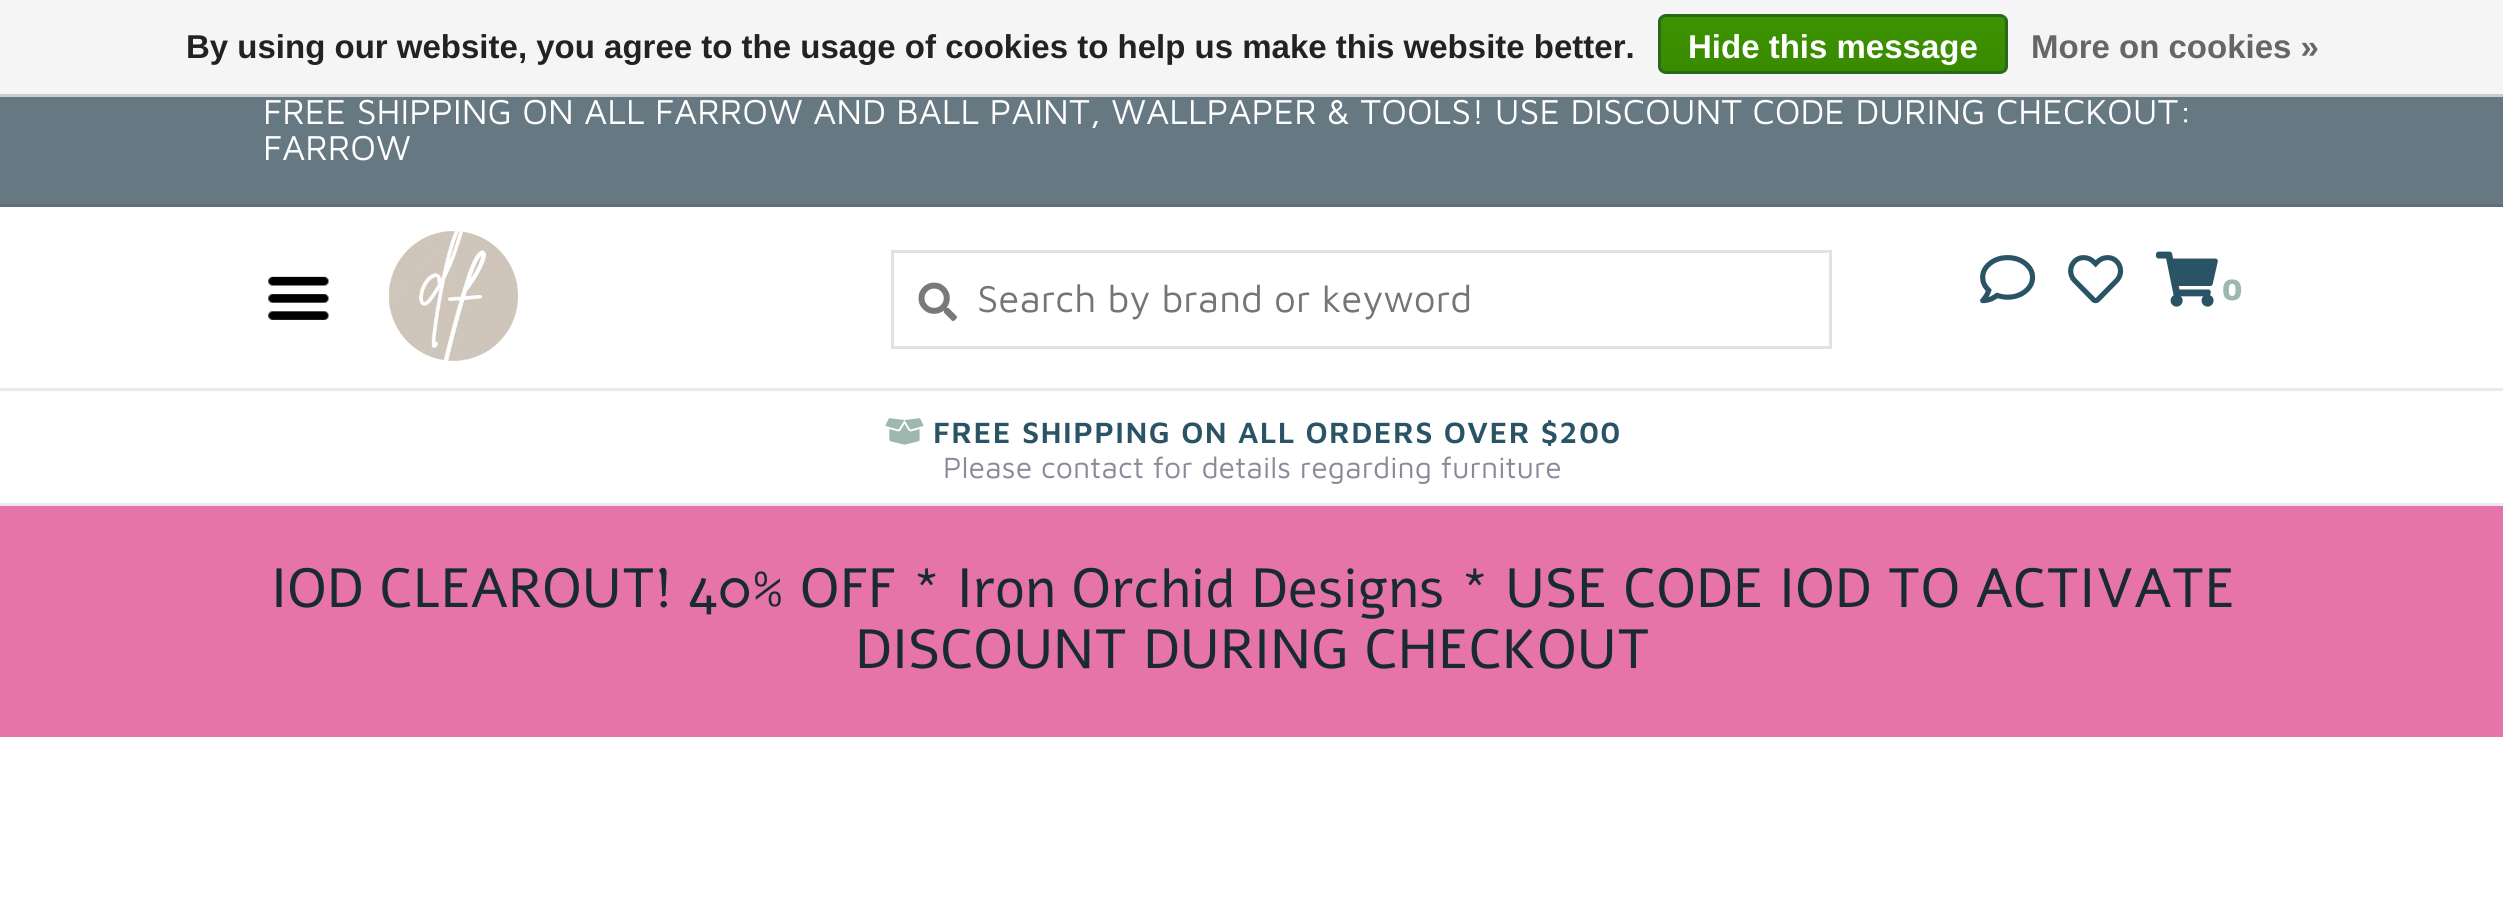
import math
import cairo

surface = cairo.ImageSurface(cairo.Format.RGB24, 2503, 916)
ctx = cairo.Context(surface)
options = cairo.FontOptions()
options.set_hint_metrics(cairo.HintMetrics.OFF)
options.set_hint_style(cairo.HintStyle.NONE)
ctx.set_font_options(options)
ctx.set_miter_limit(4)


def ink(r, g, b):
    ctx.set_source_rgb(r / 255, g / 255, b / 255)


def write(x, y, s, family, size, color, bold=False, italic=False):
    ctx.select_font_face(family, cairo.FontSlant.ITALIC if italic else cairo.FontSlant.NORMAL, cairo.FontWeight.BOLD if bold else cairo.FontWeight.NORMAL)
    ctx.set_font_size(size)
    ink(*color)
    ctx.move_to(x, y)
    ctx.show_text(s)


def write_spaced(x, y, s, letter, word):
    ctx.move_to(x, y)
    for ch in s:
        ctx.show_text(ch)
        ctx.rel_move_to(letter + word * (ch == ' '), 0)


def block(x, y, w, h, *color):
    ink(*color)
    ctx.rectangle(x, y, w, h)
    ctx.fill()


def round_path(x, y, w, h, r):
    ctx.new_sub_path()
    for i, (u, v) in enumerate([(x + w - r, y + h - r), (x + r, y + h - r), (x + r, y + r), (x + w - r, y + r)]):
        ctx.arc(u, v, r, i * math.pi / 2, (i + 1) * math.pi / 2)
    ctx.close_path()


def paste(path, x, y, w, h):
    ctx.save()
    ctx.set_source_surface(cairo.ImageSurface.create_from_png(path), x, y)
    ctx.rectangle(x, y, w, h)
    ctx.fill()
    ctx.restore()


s1 = dict(family="Liberation Sans", size=33, color=(34, 34, 34), bold=True)
s2 = dict(family="Liberation Sans", size=33, color=(255, 255, 255), bold=True)
s3 = dict(family="Liberation Sans", size=33, color=(102, 102, 102), bold=True)
s4 = dict(family="Maven Pro", size=35.75, color=(255, 255, 255))
s5 = dict(family="Maven Pro", size=38.5, color=(117, 117, 117))
s6 = dict(family="Maven Pro ExtraBold", size=30.25, color=(159, 184, 173))
s7 = dict(family="Maven Pro", size=30.25, color=(137, 139, 153))
s8 = dict(family="Alef", size=55, color=(24, 42, 50))

ink(255, 255, 255)
ctx.paint()
block(0, 0, 2503, 94, 245, 245, 245)
block(0, 94, 2503, 3, 204, 204, 204)
write(186, 58, "By using our website, you agree to the usage of cookies to help us make this website better.", **s1)
ctx.save()
round_path(1658, 14, 350, 60, 8)
ctx.clip()
gradient = cairo.LinearGradient(1833, 16, 1833, 72)
gradient.add_color_stop_rgba(0, 0.235, 0.576, 0, 1)
gradient.add_color_stop_rgba(1, 0.224, 0.541, 0, 1)
ctx.set_source(gradient)
ctx.rectangle(1658, 17, 350, 55)
ctx.fill()
ctx.restore()
round_path(1659.5, 15.5, 347, 57, 6.5)
ink(41, 105, 29)
ctx.set_line_width(3)
ctx.stroke()
write(1688, 58, "Hide this message", **s2)
write(2031, 58, "More on cookies »", **s3)
block(0, 97, 2503, 107, 102, 120, 129)
block(0, 204, 2503, 3, 94, 111, 119)
write(263, 124, "FREE SHIPPING ON ALL FARROW AND BALL PAINT, WALLPAPER & TOOLS! USE DISCOUNT CODE DURING CHECKOUT:", **s4)
write(263, 160, "FARROW", **s4)
paste("pic1.png", 268, 276, 61, 44)
paste("pic2.png", 389, 231, 129, 130)
ctx.rectangle(892.5, 251.5, 938, 96)
ink(225, 226, 228)
ctx.stroke()
paste("pic3.png", 918, 282, 39, 39)
write(977, 312, "Search by brand or keyword", **s5)
paste("pic4.png", 1980, 255, 56, 49)
paste("pic5.png", 2068, 255, 56, 49)
paste("pic6.png", 2156, 251, 62, 56)
write(2222, 300, "0", **s6)
block(0, 388, 2503, 3, 234, 234, 234)
block(0, 503, 2503, 3, 234, 234, 234)
paste("pic7.png", 885, 418, 39, 27)
ctx.select_font_face("Maven Pro SemiBold")
ink(42, 84, 102)
write_spaced(933, 443, "FREE SHIPPING ON ALL ORDERS OVER $200", 1.4, 0)
write(943, 478, "Please contact for details regarding furniture", **s7)
block(0, 506, 2503, 231, 230, 116, 169)
write(271, 607, "IOD CLEAROUT! 40% OFF * Iron Orchid Designs * USE CODE IOD TO ACTIVATE", **s8)
write(855, 668, "DISCOUNT DURING CHECKOUT", **s8)
surface.write_to_png("screenshot.png")
